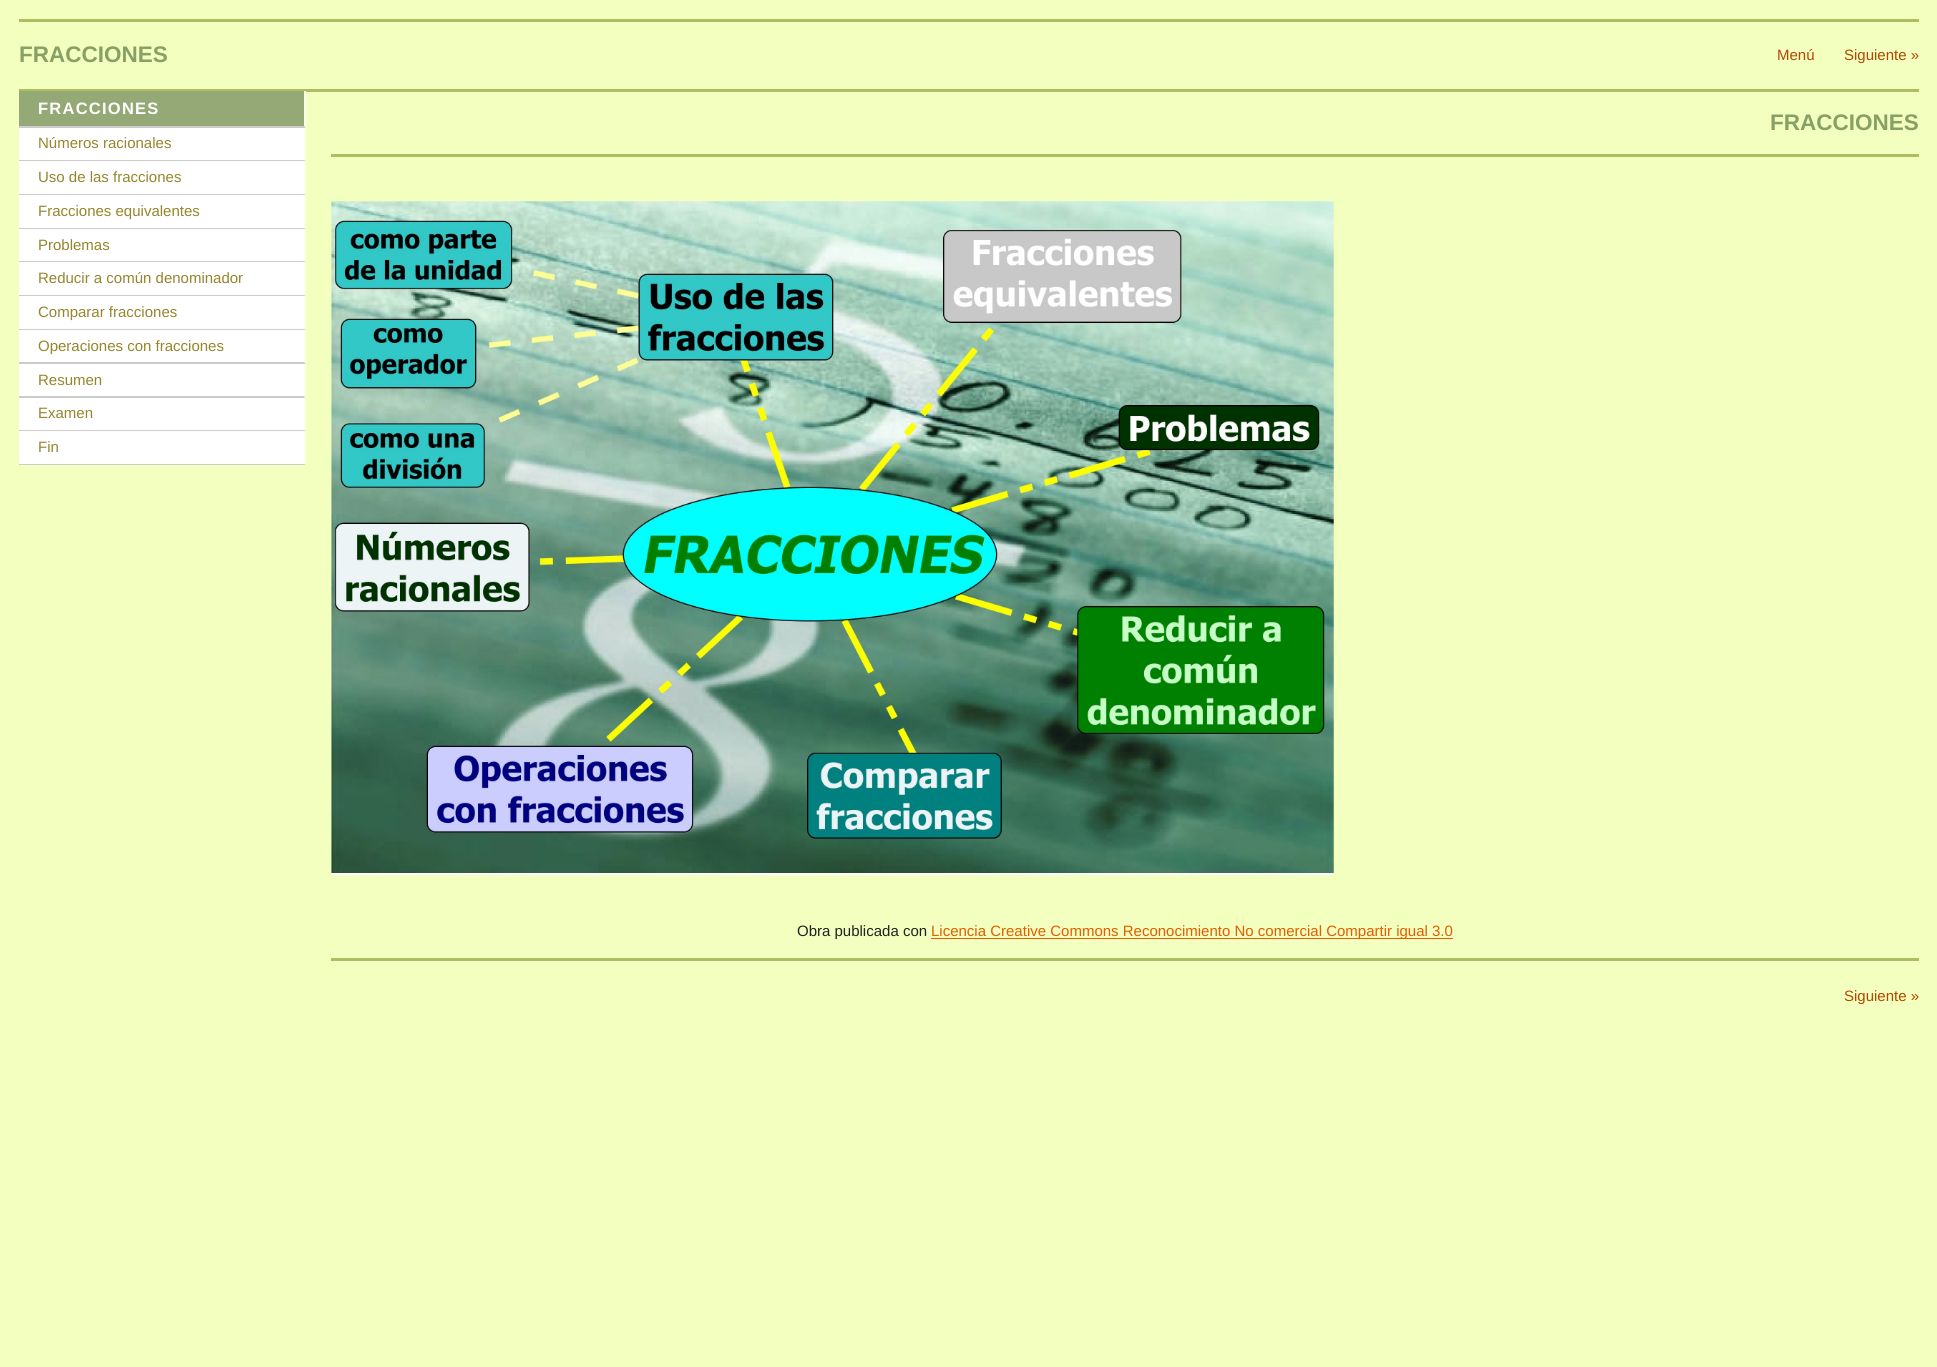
import math
import cairo

surface = cairo.ImageSurface(cairo.Format.RGB24, 1937, 1367)
ctx = cairo.Context(surface)
options = cairo.FontOptions()
options.set_hint_metrics(cairo.HintMetrics.OFF)
options.set_hint_style(cairo.HintStyle.NONE)
ctx.set_font_options(options)
ctx.set_miter_limit(4)


def ink(r, g, b):
    ctx.set_source_rgb(r / 255, g / 255, b / 255)


def write(x, y, s, family, size, color, bold=False, italic=False):
    ctx.select_font_face(family, cairo.FontSlant.ITALIC if italic else cairo.FontSlant.NORMAL, cairo.FontWeight.BOLD if bold else cairo.FontWeight.NORMAL)
    ctx.set_font_size(size)
    ink(*color)
    ctx.move_to(x, y)
    ctx.show_text(s)


def write_spaced(x, y, s, letter, word):
    ctx.move_to(x, y)
    for ch in s:
        ctx.show_text(ch)
        ctx.rel_move_to(letter + word * (ch == ' '), 0)


def block(x, y, w, h, *color):
    ink(*color)
    ctx.rectangle(x, y, w, h)
    ctx.fill()


def paste(path, x, y, w, h):
    ctx.save()
    ctx.set_source_surface(cairo.ImageSurface.create_from_png(path), x, y)
    ctx.rectangle(x, y, w, h)
    ctx.fill()
    ctx.restore()


s1 = dict(family="Liberation Sans", size=22.5, color=(136, 159, 101), bold=True)
s2 = dict(family="Liberation Sans", size=15, color=(179, 71, 0))
s3 = dict(family="Liberation Sans", size=15, color=(150, 133, 44))
s4 = dict(family="Liberation Sans", size=15, color=(34, 34, 34))
s5 = dict(family="Liberation Sans", size=15, color=(230, 92, 0))

ink(242, 255, 191)
ctx.paint()
block(19, 19, 1900, 3, 172, 191, 96)
block(19, 89, 1900, 3, 172, 191, 96)
write(19, 62, "FRACCIONES", **s1)
write(1777, 60, "Menú", **s2)
write(1844, 60, "Siguiente »", **s2)
block(19, 91, 287, 37, 148, 169, 117)
ink(250, 255, 230)
ctx.new_path()
ctx.move_to(306, 91)
ctx.line_to(306, 127.5)
ctx.line_to(304, 126)
ctx.line_to(304, 91)
ctx.close_path()
ctx.fill()
ink(204, 204, 204)
ctx.new_path()
ctx.move_to(306, 128)
ctx.line_to(19, 128)
ctx.line_to(19, 126)
ctx.line_to(304, 126)
ctx.close_path()
ctx.fill()
ctx.select_font_face("Liberation Sans", cairo.FontSlant.NORMAL, cairo.FontWeight.BOLD)
ctx.set_font_size(16.5)
ink(255, 255, 255)
write_spaced(38, 114, "FRACCIONES", 1.25, 0)
block(19, 128, 287, 337, 255, 255, 255)
ink(250, 255, 230)
ctx.new_path()
ctx.move_to(306, 127.5)
ctx.line_to(306, 161)
ctx.line_to(304, 160)
ctx.line_to(304, 127.5)
ctx.close_path()
ctx.fill()
ink(204, 204, 204)
ctx.new_path()
ctx.move_to(306, 161)
ctx.line_to(19, 161)
ctx.line_to(19, 160)
ctx.line_to(304, 160)
ctx.close_path()
ctx.fill()
write(38, 148, "Números racionales", **s3)
ink(250, 255, 230)
ctx.new_path()
ctx.move_to(306, 161)
ctx.line_to(306, 195)
ctx.line_to(304, 194)
ctx.line_to(304, 161)
ctx.close_path()
ctx.fill()
ink(204, 204, 204)
ctx.new_path()
ctx.move_to(306, 195)
ctx.line_to(19, 195)
ctx.line_to(19, 194)
ctx.line_to(304, 194)
ctx.close_path()
ctx.fill()
write(38, 182, "Uso de las fracciones", **s3)
ink(250, 255, 230)
ctx.new_path()
ctx.move_to(306, 195)
ctx.line_to(306, 229)
ctx.line_to(304, 227.5)
ctx.line_to(304, 195)
ctx.close_path()
ctx.fill()
ink(204, 204, 204)
ctx.new_path()
ctx.move_to(306, 229)
ctx.line_to(19, 229)
ctx.line_to(19, 228)
ctx.line_to(304, 228)
ctx.close_path()
ctx.fill()
write(38, 216, "Fracciones equivalentes", **s3)
ink(250, 255, 230)
ctx.new_path()
ctx.move_to(306, 229)
ctx.line_to(306, 262.5)
ctx.line_to(304, 261)
ctx.line_to(304, 229)
ctx.close_path()
ctx.fill()
ink(204, 204, 204)
ctx.new_path()
ctx.move_to(306, 262)
ctx.line_to(19, 262)
ctx.line_to(19, 261)
ctx.line_to(304, 261)
ctx.close_path()
ctx.fill()
write(38, 250, "Problemas", **s3)
ink(250, 255, 230)
ctx.new_path()
ctx.move_to(306, 262.5)
ctx.line_to(306, 296)
ctx.line_to(304, 295)
ctx.line_to(304, 262.5)
ctx.close_path()
ctx.fill()
ink(204, 204, 204)
ctx.new_path()
ctx.move_to(306, 296)
ctx.line_to(19, 296)
ctx.line_to(19, 295)
ctx.line_to(304, 295)
ctx.close_path()
ctx.fill()
write(38, 283, "Reducir a común denominador", **s3)
ink(250, 255, 230)
ctx.new_path()
ctx.move_to(306, 296)
ctx.line_to(306, 330)
ctx.line_to(304, 329)
ctx.line_to(304, 296)
ctx.close_path()
ctx.fill()
ink(204, 204, 204)
ctx.new_path()
ctx.move_to(306, 330)
ctx.line_to(19, 330)
ctx.line_to(19, 329)
ctx.line_to(304, 329)
ctx.close_path()
ctx.fill()
write(38, 317, "Comparar fracciones", **s3)
ink(250, 255, 230)
ctx.new_path()
ctx.move_to(306, 330)
ctx.line_to(306, 364)
ctx.line_to(304, 362.5)
ctx.line_to(304, 330)
ctx.close_path()
ctx.fill()
ink(204, 204, 204)
ctx.new_path()
ctx.move_to(306, 364)
ctx.line_to(19, 364)
ctx.line_to(19, 362)
ctx.line_to(304, 362)
ctx.close_path()
ctx.fill()
write(38, 351, "Operaciones con fracciones", **s3)
ink(250, 255, 230)
ctx.new_path()
ctx.move_to(306, 364)
ctx.line_to(306, 397.5)
ctx.line_to(304, 396)
ctx.line_to(304, 364)
ctx.close_path()
ctx.fill()
ink(204, 204, 204)
ctx.new_path()
ctx.move_to(306, 398)
ctx.line_to(19, 398)
ctx.line_to(19, 396)
ctx.line_to(304, 396)
ctx.close_path()
ctx.fill()
write(38, 385, "Resumen", **s3)
ink(250, 255, 230)
ctx.new_path()
ctx.move_to(306, 397.5)
ctx.line_to(306, 431)
ctx.line_to(304, 430)
ctx.line_to(304, 397.5)
ctx.close_path()
ctx.fill()
ink(204, 204, 204)
ctx.new_path()
ctx.move_to(306, 431)
ctx.line_to(19, 431)
ctx.line_to(19, 430)
ctx.line_to(304, 430)
ctx.close_path()
ctx.fill()
write(38, 418, "Examen", **s3)
ink(250, 255, 230)
ctx.new_path()
ctx.move_to(306, 431)
ctx.line_to(306, 465)
ctx.line_to(304, 464)
ctx.line_to(304, 431)
ctx.close_path()
ctx.fill()
ink(204, 204, 204)
ctx.new_path()
ctx.move_to(306, 465)
ctx.line_to(19, 465)
ctx.line_to(19, 464)
ctx.line_to(304, 464)
ctx.close_path()
ctx.fill()
write(38, 452, "Fin", **s3)
block(331, 154, 1588, 3, 172, 191, 96)
write(1770, 130, "FRACCIONES", **s1)
paste("pic1.png", 331, 201, 1003, 674)
write(797, 936, "Obra publicada con", **s4)
block(931, 938, 522, 1, 230, 92, 0)
write(931, 936, "Licencia Creative Commons Reconocimiento No comercial Compartir igual 3.0", **s5)
block(331, 958, 1588, 3, 172, 191, 96)
write(1844, 1001, "Siguiente »", **s2)
surface.write_to_png("screenshot.png")
